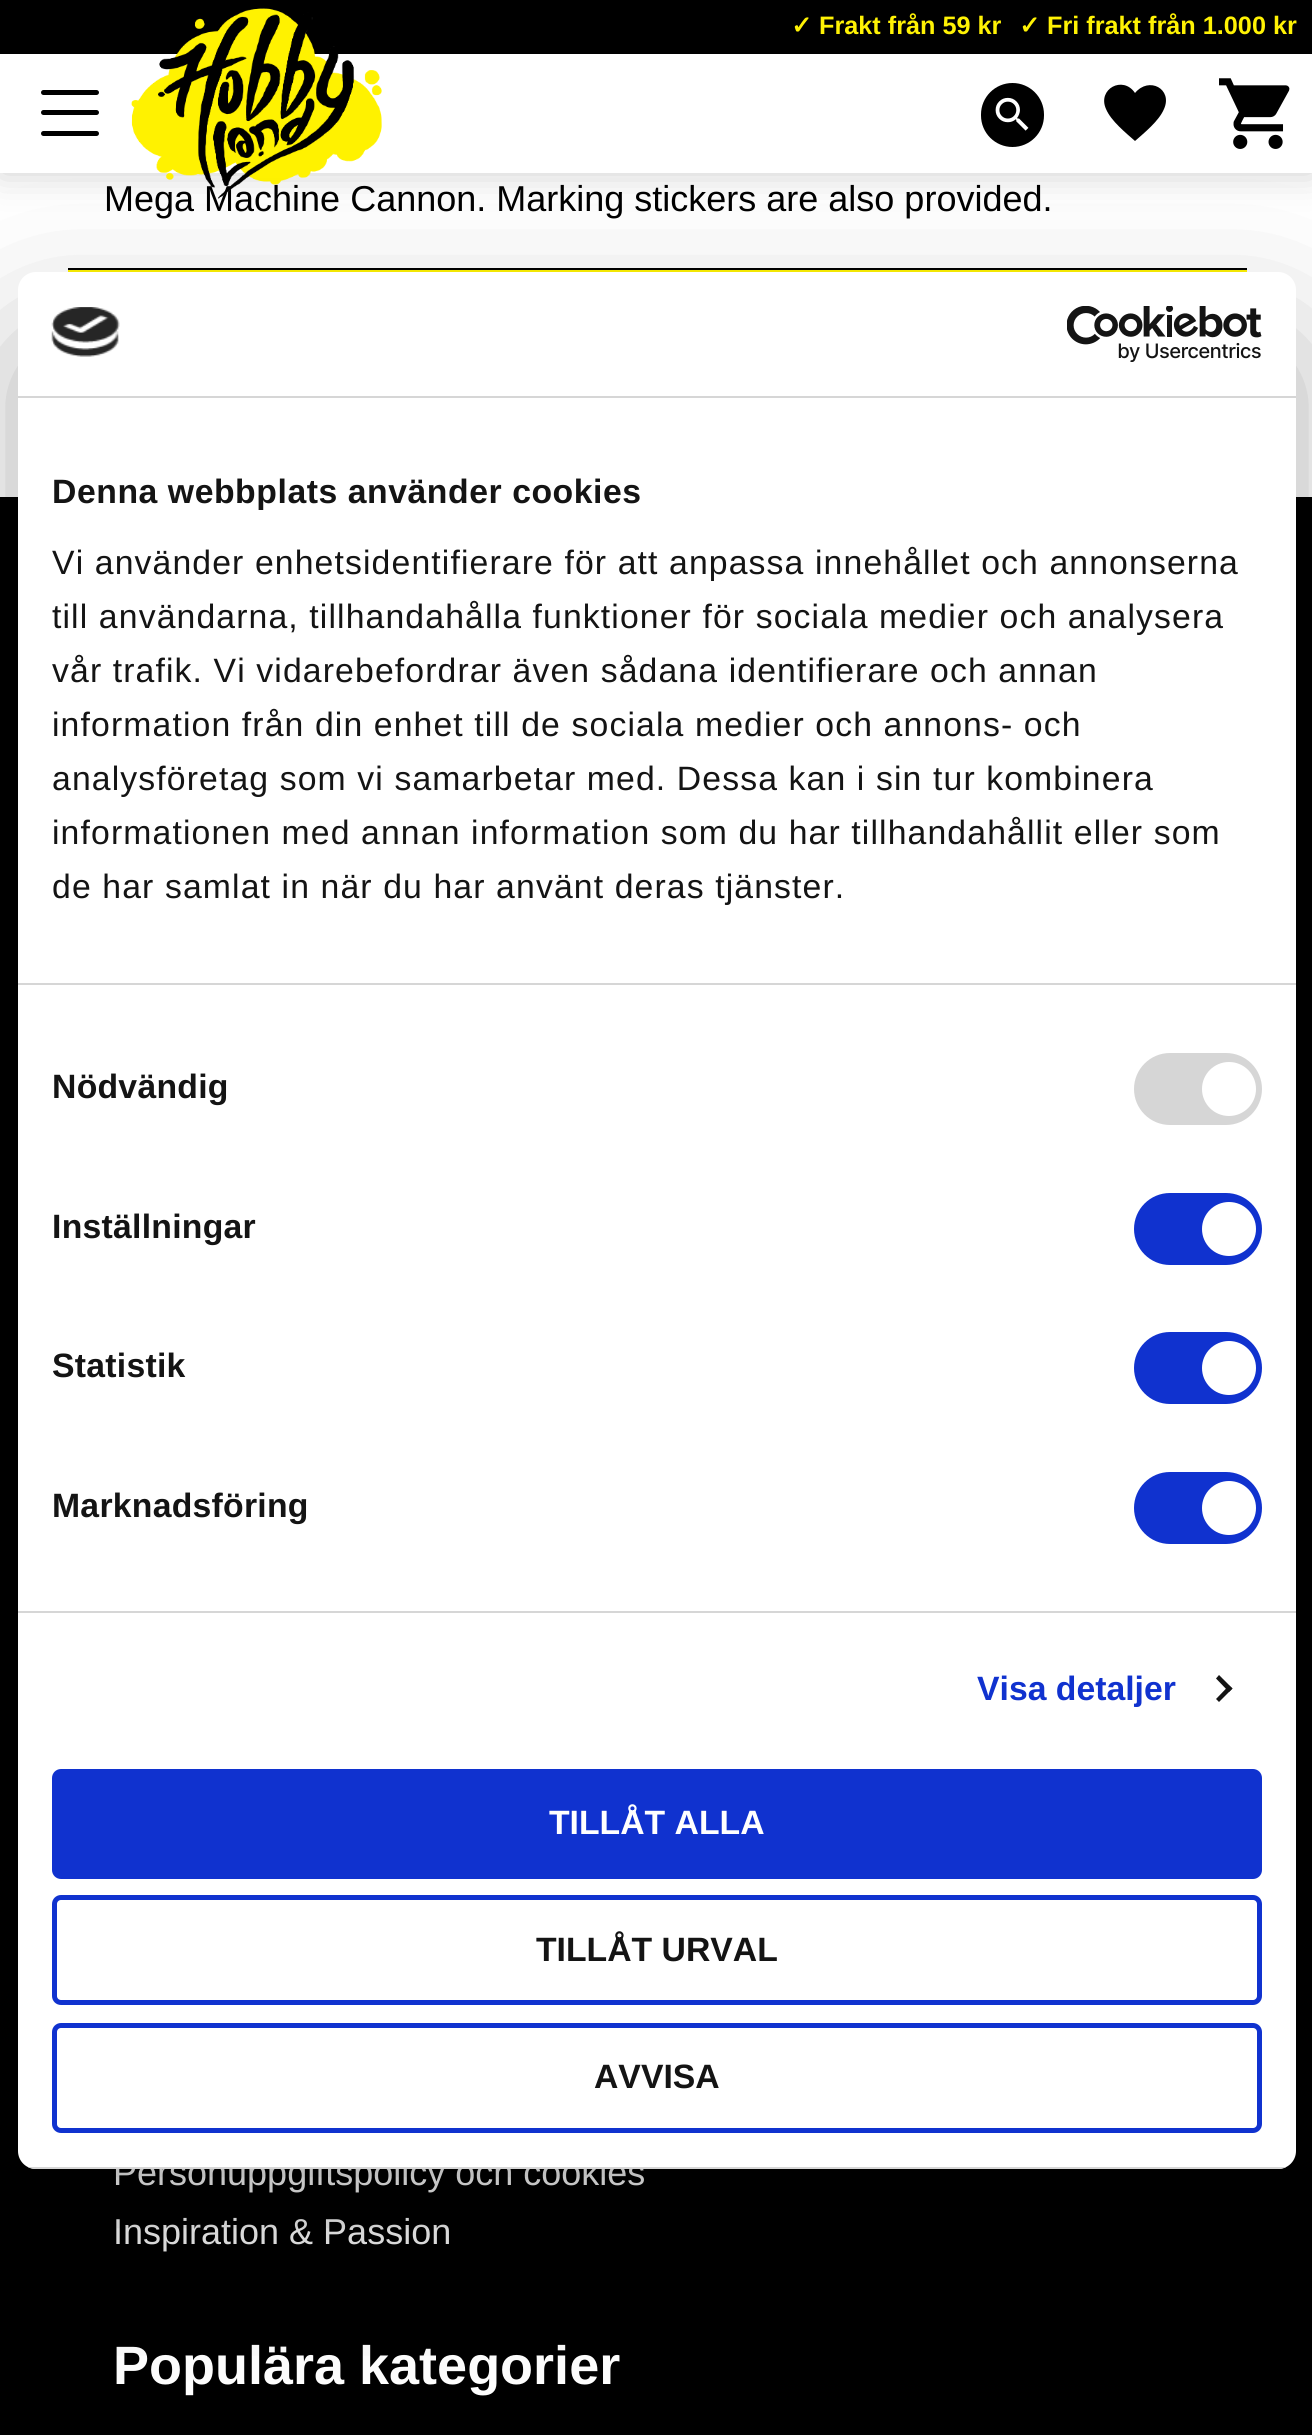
import math
import cairo

surface = cairo.ImageSurface(cairo.Format.RGB24, 1312, 2435)
ctx = cairo.Context(surface)
options = cairo.FontOptions()
options.set_hint_metrics(cairo.HintMetrics.OFF)
options.set_hint_style(cairo.HintStyle.NONE)
ctx.set_font_options(options)
ctx.set_miter_limit(4)


def ink(r, g, b):
    ctx.set_source_rgb(r / 255, g / 255, b / 255)


def write(x, y, s, family, size, color, bold=False, italic=False):
    ctx.select_font_face(family, cairo.FontSlant.ITALIC if italic else cairo.FontSlant.NORMAL, cairo.FontWeight.BOLD if bold else cairo.FontWeight.NORMAL)
    ctx.set_font_size(size)
    ink(*color)
    ctx.move_to(x, y)
    ctx.show_text(s)


def write_spaced(x, y, s, letter, word):
    ctx.move_to(x, y)
    for ch in s:
        ctx.show_text(ch)
        ctx.rel_move_to(letter + word * (ch == ' '), 0)


def block(x, y, w, h, *color):
    ink(*color)
    ctx.rectangle(x, y, w, h)
    ctx.fill()


def round_path(x, y, w, h, r):
    ctx.new_sub_path()
    for i, (u, v) in enumerate([(x + w - r, y + h - r), (x + r, y + h - r), (x + r, y + r), (x + w - r, y + r)]):
        ctx.arc(u, v, r, i * math.pi / 2, (i + 1) * math.pi / 2)
    ctx.close_path()


def blur_box(x, y, w, h, r, blur, alpha):
    ctx.push_group_with_content(cairo.Content.ALPHA)
    ctx.set_operator(cairo.Operator.SOURCE)
    for i in range(15, -16, -2):
        e = blur * i / 6
        if min(w, h) + 2 * e > 0:
            ctx.set_source_rgba(0, 0, 0, alpha * math.erfc((i - 1) / 8.5) / 2)
            round_path(x - e, y - e, w + 2 * e, h + 2 * e, max(0, min(r + e + blur * .6, min(w, h) / 2 + e)))
            ctx.fill()
    ctx.mask(ctx.pop_group())


def paste(path, x, y, w, h):
    ctx.save()
    ctx.set_source_surface(cairo.ImageSurface.create_from_png(path), x, y)
    ctx.rectangle(x, y, w, h)
    ctx.fill()
    ctx.restore()


s1 = dict(family="Liberation Sans", size=36, color=(0, 0, 0))
s2 = dict(family="DejaVu Sans", size=25.25, color=(255, 242, 4), bold=True)
s3 = dict(family="Liberation Sans", size=25.25, color=(255, 242, 4), bold=True)
s4 = dict(family="Liberation Sans", size=36, color=(255, 255, 255))
s5 = dict(family="Liberation Sans", size=54, color=(255, 255, 255), bold=True)
s6 = dict(family="Liberation Sans", size=33.75, color=(16, 50, 207), bold=True)
s7 = dict(family="Liberation Sans", size=33.75, color=(255, 255, 255), bold=True)
s8 = dict(family="Liberation Sans", size=33.75, color=(20, 20, 20), bold=True)

ink(255, 255, 255)
ctx.paint()
ink(0, 0, 0)
blur_box(0, 0, 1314, 173, 0, 18, 0.2)
block(0, 54, 1312, 119, 255, 255, 255)
block(0, 0, 1312, 54, 0, 0, 0)
write(104, 211, "Mega Machine Cannon. Marking stickers are also provided.", **s1)
paste("pic1.png", 131, 8, 251, 191)
write(791, 34, "✓", **s2)
write(819, 34, "Frakt från 59 kr", **s3)
write(1019, 34, "✓", **s2)
write(1047, 34, "Fri frakt från 1.000 kr", **s3)
ink(0, 0, 0)
round_path(980, 82, 65, 66, 32.5)
ctx.fill_preserve()
ink(255, 255, 255)
ctx.stroke()
paste("pic2.png", 995, 97, 34, 34)
ink(0, 0, 0)
ctx.new_path()
ctx.move_to(1135, 141)
ctx.curve_to(1126, 133, 1111, 121, 1106, 109)
ctx.curve_to(1097, 89, 1123, 75, 1135, 93)
ctx.curve_to(1149, 76, 1173, 89, 1164, 109)
ctx.curve_to(1159, 121, 1144, 133, 1135, 141)
ctx.close_path()
ctx.fill()
paste("pic3.png", 1219, 78, 71, 71)
round_path(41, 110, 58, 5, 2.5)
ctx.fill()
round_path(41, 90, 58, 5, 2.5)
ctx.fill()
round_path(41, 131, 58, 5, 2.5)
ctx.fill()
block(68, 270, 1179, 2, 255, 242, 4)
block(68, 268, 1179, 2, 0, 0, 0)
block(0, 497, 1312, 1938, 0, 0, 0)
write(113, 2185, "Personuppgiftspolicy och cookies", **s4)
write(113, 2244, "Inspiration & Passion", **s4)
write(113, 2384, "Populära kategorier", **s5)
ink(0, 0, 0)
blur_box(18, 344, 1278, 1897, 18, 76.5, 0.3)
ink(255, 255, 255)
round_path(18, 272, 1278, 1897, 18)
ctx.fill()
block(18, 396, 1278, 2, 214, 214, 214)
paste("pic4.png", 51, 307, 69, 50)
paste("pic5.png", 1067, 306, 195, 56)
block(18, 983, 1278, 2, 214, 214, 214)
ctx.set_font_size(33.75)
ink(20, 20, 20)
write_spaced(52, 503, "Denna webbplats använder cookies", 0.55, 0)
ctx.select_font_face("Liberation Sans")
write_spaced(52, 574, "Vi använder enhetsidentifierare för att anpassa innehållet och annonserna", 1.12, 0)
write_spaced(52, 628, "till användarna, tillhandahålla funktioner för sociala medier och analysera", 1.12, 0)
write_spaced(52, 682, "vår trafik. Vi vidarebefordrar även sådana identifierare och annan", 1.12, 0)
write_spaced(52, 736, "information från din enhet till de sociala medier och annons- och", 1.12, 0)
write_spaced(52, 790, "analysföretag som vi samarbetar med. Dessa kan i sin tur kombinera", 1.12, 0)
write_spaced(52, 844, "informationen med annan information som du har tillhandahållit eller som", 1.12, 0)
write_spaced(52, 898, "de har samlat in när du har använt deras tjänster.", 1.12, 0)
block(18, 1611, 1278, 2, 214, 214, 214)
ctx.select_font_face("Liberation Sans", cairo.FontSlant.NORMAL, cairo.FontWeight.BOLD)
ink(20, 20, 20)
write_spaced(52, 1098, "Nödvändig", 0.25, 0)
ink(214, 214, 214)
round_path(1134, 1053, 128, 72, 36)
ctx.fill()
ink(255, 255, 255)
ctx.arc(1229, 1089, 27, 0, 2 * math.pi)
ctx.fill()
ink(20, 20, 20)
write_spaced(52, 1238, "Inställningar", 0.25, 0)
ink(16, 50, 207)
round_path(1134, 1193, 128, 72, 36)
ctx.fill()
ink(255, 255, 255)
ctx.arc(1229, 1229, 27, 0, 2 * math.pi)
ctx.fill()
ink(20, 20, 20)
write_spaced(52, 1377, "Statistik", 0.25, 0)
ink(16, 50, 207)
round_path(1134, 1332, 128, 72, 36)
ctx.fill()
ink(255, 255, 255)
ctx.arc(1229, 1368, 27, 0, 2 * math.pi)
ctx.fill()
ink(20, 20, 20)
write_spaced(52, 1517, "Marknadsföring", 0.25, 0)
ink(16, 50, 207)
round_path(1134, 1472, 128, 72, 36)
ctx.fill()
ink(255, 255, 255)
ctx.arc(1229, 1508, 27, 0, 2 * math.pi)
ctx.fill()
write(977, 1700, "Visa detaljer", **s6)
ink(20, 20, 20)
ctx.new_path()
ctx.move_to(1219, 1675)
ctx.line_to(1232.5, 1688.5)
ctx.line_to(1229, 1692)
ctx.line_to(1216, 1678.5)
ctx.close_path()
ctx.fill()
ctx.new_path()
ctx.move_to(1229, 1685.5)
ctx.line_to(1232.5, 1688.5)
ctx.line_to(1219, 1702)
ctx.line_to(1216, 1699)
ctx.close_path()
ctx.fill()
ctx.save()
round_path(18, 272, 1278, 1897, 18)
ctx.clip()
block(28, 2167, 1258, 2, 214, 214, 214)
ctx.restore()
ink(16, 50, 207)
round_path(54.5, 1771.5, 1205, 105, 6.5)
ctx.fill_preserve()
ctx.set_line_width(5)
ctx.stroke()
write(549, 1834, "TILLÅT ALLA", **s7)
round_path(54.5, 1897.5, 1205, 105, 6.5)
ink(16, 50, 207)
ctx.stroke()
write(536, 1961, "TILLÅT URVAL", **s8)
round_path(54.5, 2025.5, 1205, 105, 6.5)
ink(16, 50, 207)
ctx.stroke()
write(594, 2088, "AVVISA", **s8)
surface.write_to_png("screenshot.png")
